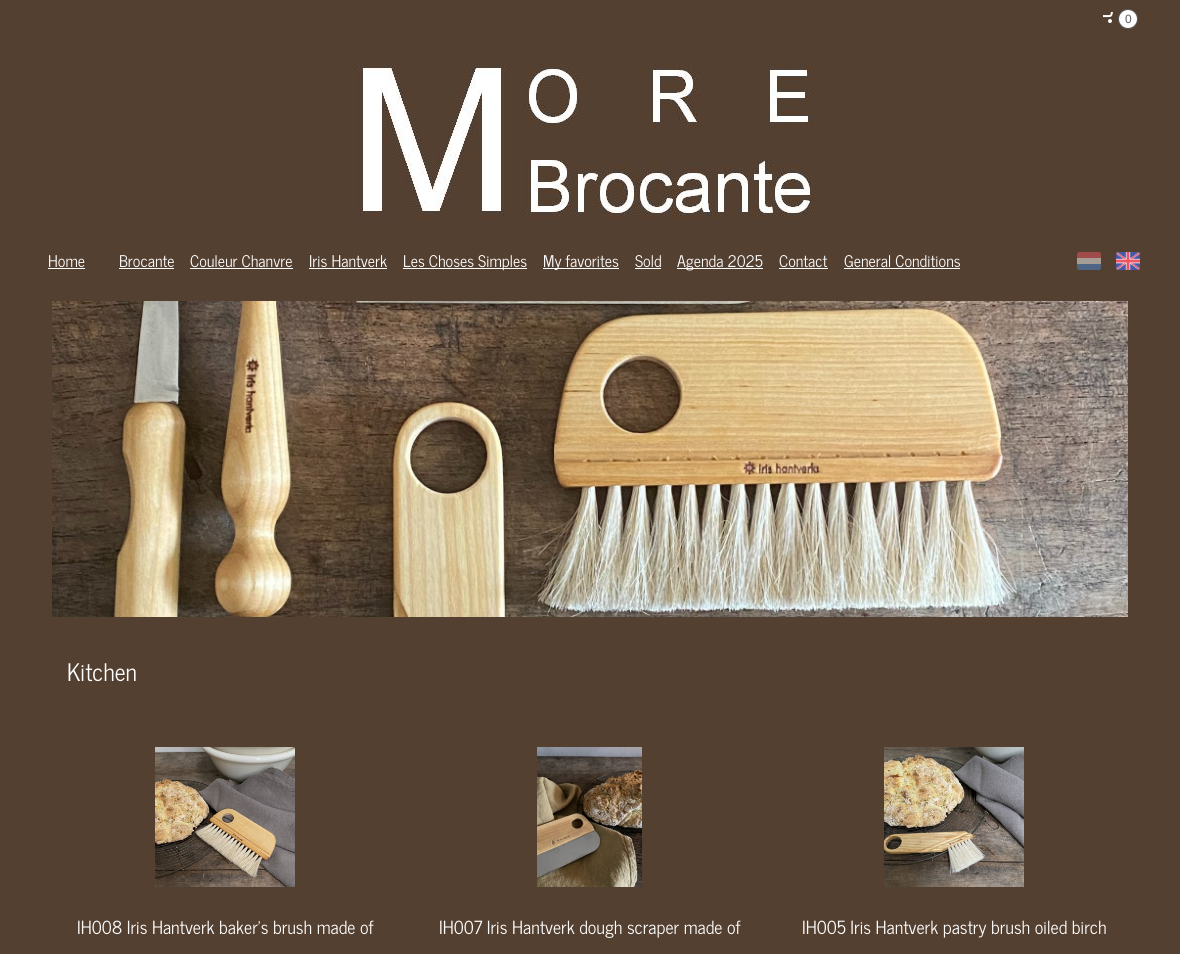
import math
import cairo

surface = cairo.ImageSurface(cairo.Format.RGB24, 1180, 954)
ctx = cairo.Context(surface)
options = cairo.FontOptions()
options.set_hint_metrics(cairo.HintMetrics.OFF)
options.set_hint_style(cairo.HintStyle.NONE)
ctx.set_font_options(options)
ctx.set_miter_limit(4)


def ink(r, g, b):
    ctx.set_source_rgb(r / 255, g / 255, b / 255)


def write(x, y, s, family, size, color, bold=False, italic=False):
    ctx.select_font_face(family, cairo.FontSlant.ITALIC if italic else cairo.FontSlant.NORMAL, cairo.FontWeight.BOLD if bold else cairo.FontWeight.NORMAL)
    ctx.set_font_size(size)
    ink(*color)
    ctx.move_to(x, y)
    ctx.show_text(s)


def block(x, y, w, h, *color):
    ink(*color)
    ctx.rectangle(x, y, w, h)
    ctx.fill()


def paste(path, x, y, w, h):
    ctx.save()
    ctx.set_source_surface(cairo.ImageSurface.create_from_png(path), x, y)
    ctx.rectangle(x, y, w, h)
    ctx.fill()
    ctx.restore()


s1 = dict(family="Liberation Sans", size=12, color=(87, 91, 98))
s2 = dict(family="News Cycle", size=16, color=(255, 255, 255))
s3 = dict(family="News Cycle", size=24, color=(255, 255, 255))
s4 = dict(family="News Cycle", size=18, color=(255, 255, 255))

ink(84, 64, 49)
ctx.paint()
paste("pic1.png", 1103, 12, 10, 11)
ctx.arc(1128, 19, 9.5, 0, 2 * math.pi)
ink(87, 91, 98)
ctx.set_line_width(1)
ctx.stroke()
ink(255, 255, 255)
ctx.arc(1128, 19, 9, 0, 2 * math.pi)
ctx.fill()
write(1125, 23, "0", **s1)
paste("pic2.png", 356, 64, 456, 159)
write(48, 267, "Home", **s2)
block(48, 268, 37, 1, 255, 255, 255)
write(119, 267, "Brocante", **s2)
block(119, 268, 55, 1, 255, 255, 255)
write(190, 267, "Couleur Chanvre", **s2)
block(190, 268, 103, 1, 255, 255, 255)
write(309, 267, "Iris Hantverk", **s2)
block(309, 268, 78, 1, 255, 255, 255)
block(403, 268, 124, 1, 255, 255, 255)
write(403, 267, "Les Choses Simples", **s2)
block(543, 268, 76, 1, 255, 255, 255)
write(543, 267, "My favorites", **s2)
write(635, 267, "Sold", **s2)
block(635, 268, 26, 1, 255, 255, 255)
block(677, 268, 86, 1, 255, 255, 255)
write(677, 267, "Agenda 2025", **s2)
write(779, 267, "Contact", **s2)
block(779, 268, 49, 1, 255, 255, 255)
write(844, 267, "General Conditions", **s2)
block(844, 268, 116, 1, 255, 255, 255)
paste("pic3.png", 1077, 252, 24, 18)
paste("pic4.png", 1116, 252, 24, 18)
paste("pic5.png", 52, 301, 1076, 316)
write(67, 681, "Kitchen", **s3)
paste("pic6.png", 155, 747, 140, 140)
write(77, 934, "IH008 Iris Hantverk baker's brush made of", **s4)
paste("pic7.png", 537, 747, 105, 140)
write(439, 934, "IH007 Iris Hantverk dough scraper made of", **s4)
paste("pic8.png", 884, 747, 140, 140)
write(802, 934, "IH005 Iris Hantverk pastry brush oiled birch", **s4)
surface.write_to_png("screenshot.png")
